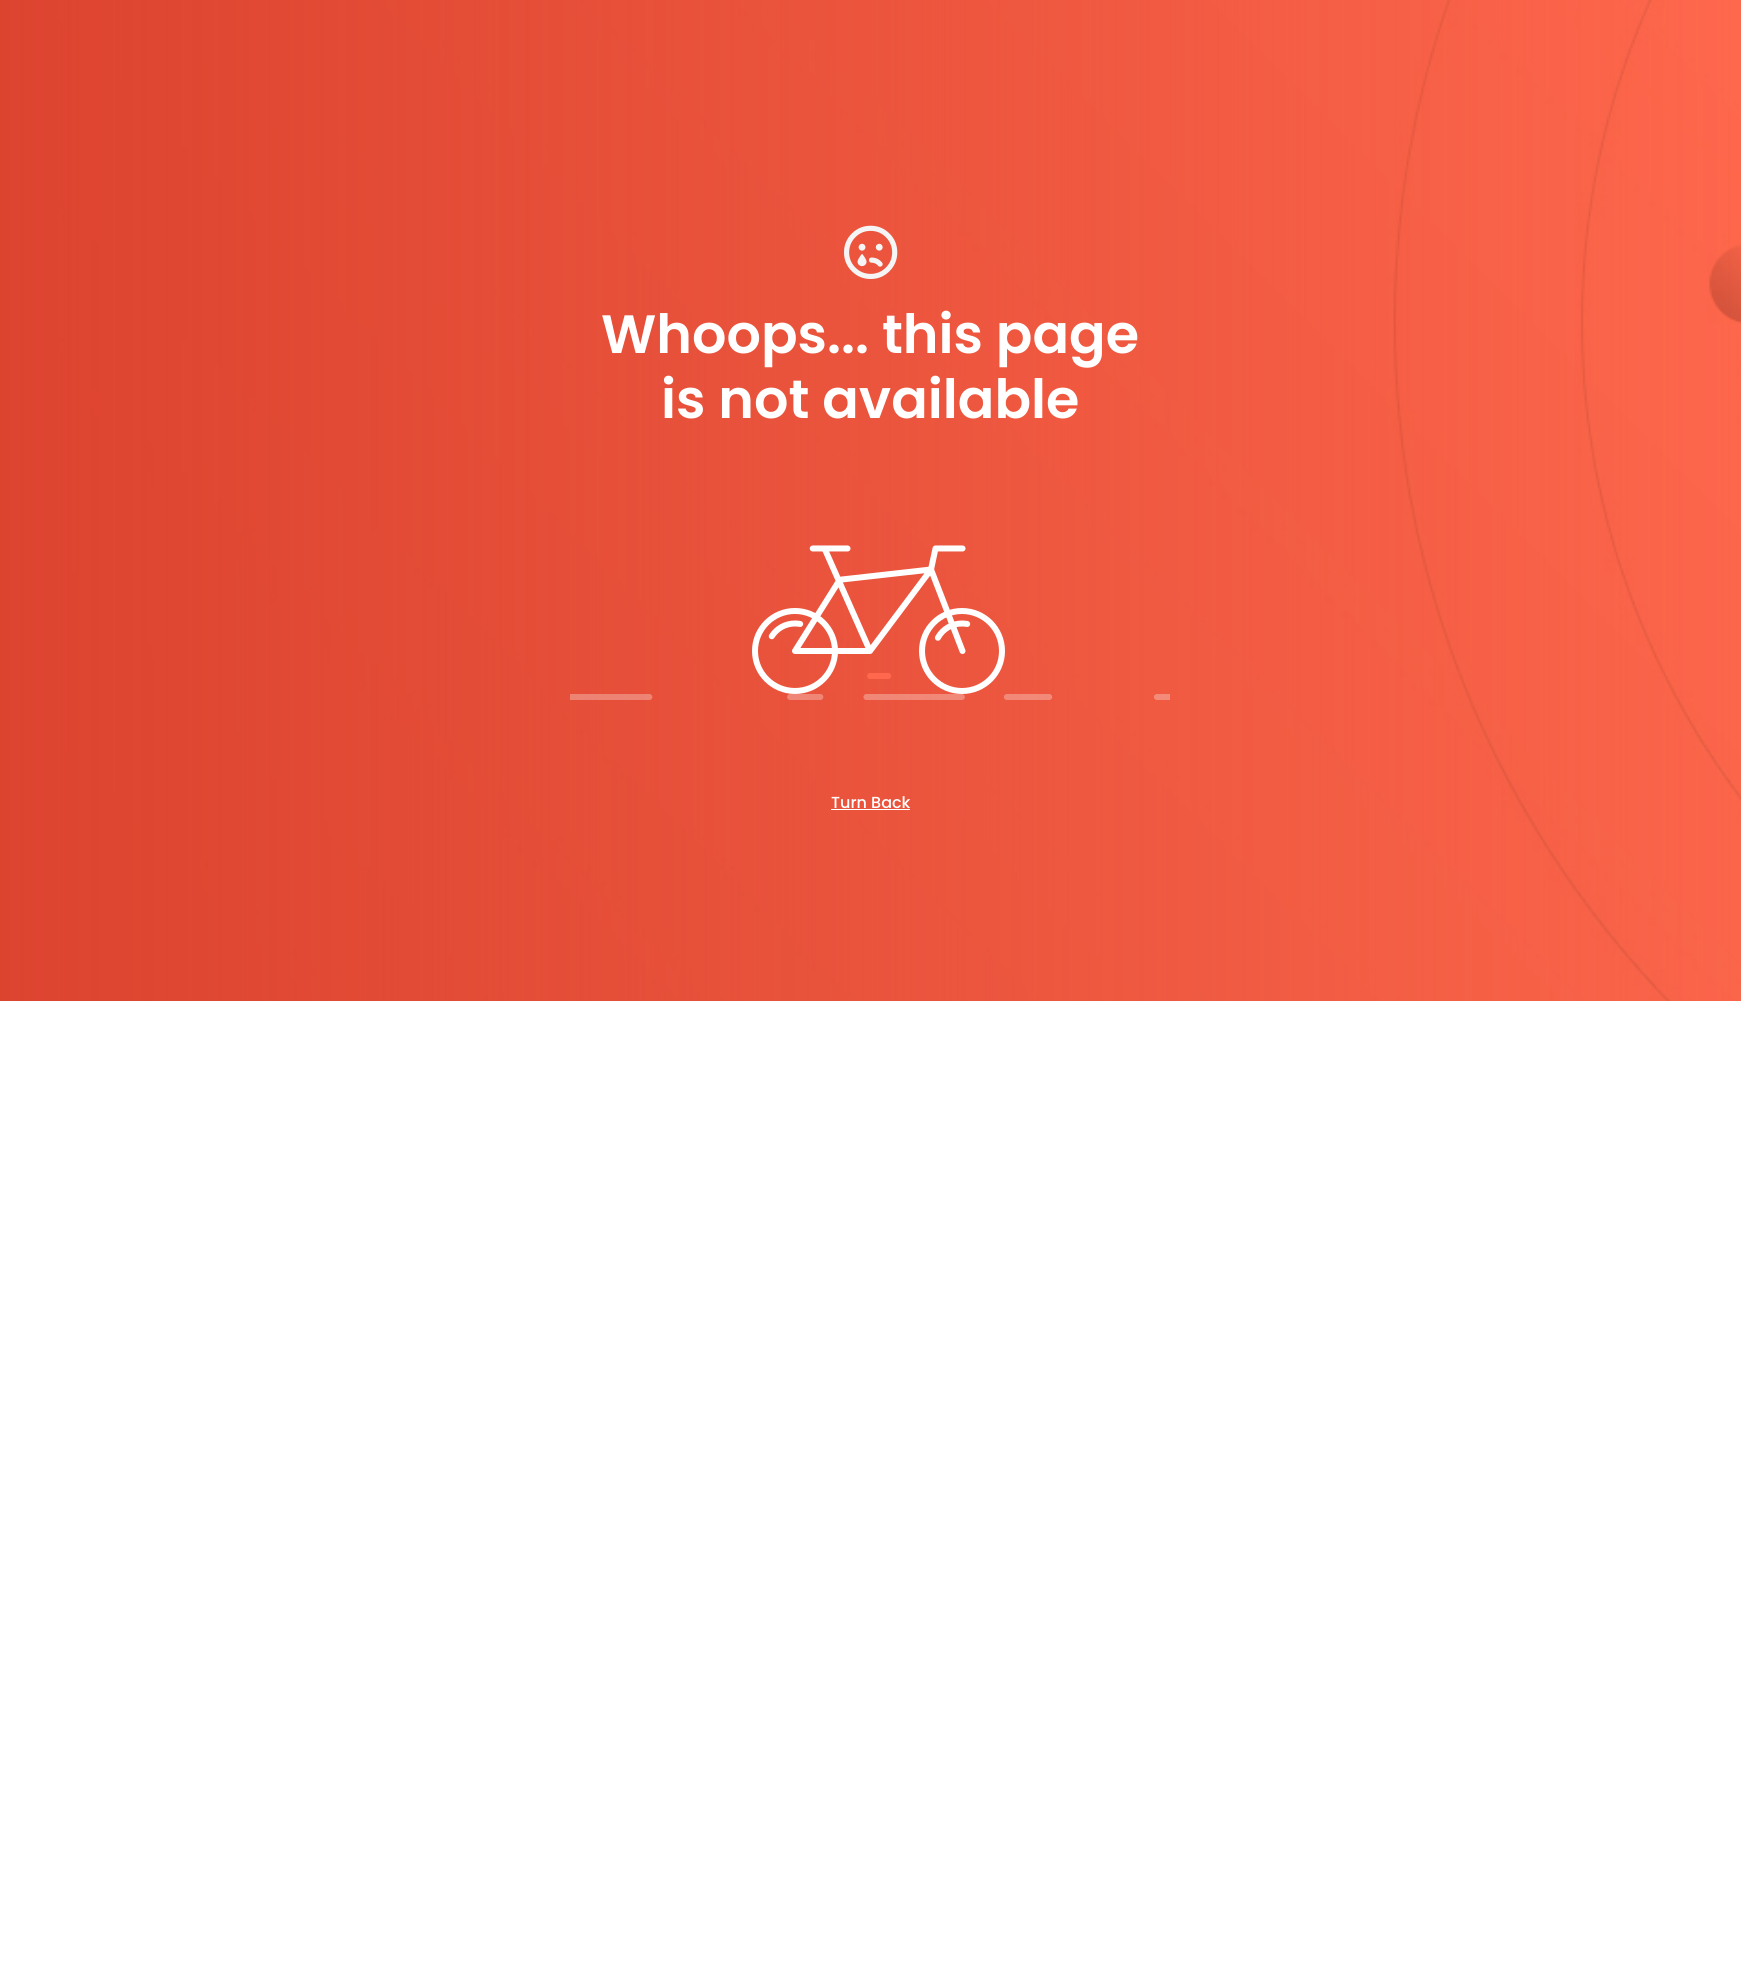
import math
import cairo

surface = cairo.ImageSurface(cairo.Format.RGB24, 1741, 1983)
ctx = cairo.Context(surface)
options = cairo.FontOptions()
options.set_hint_metrics(cairo.HintMetrics.OFF)
options.set_hint_style(cairo.HintStyle.NONE)
ctx.set_font_options(options)
ctx.set_miter_limit(4)


def ink(r, g, b):
    ctx.set_source_rgb(r / 255, g / 255, b / 255)


def write(x, y, s, family, size, color, bold=False, italic=False):
    ctx.select_font_face(family, cairo.FontSlant.ITALIC if italic else cairo.FontSlant.NORMAL, cairo.FontWeight.BOLD if bold else cairo.FontWeight.NORMAL)
    ctx.set_font_size(size)
    ink(*color)
    ctx.move_to(x, y)
    ctx.show_text(s)


def block(x, y, w, h, *color):
    ink(*color)
    ctx.rectangle(x, y, w, h)
    ctx.fill()


def paste(path, x, y, w, h):
    ctx.save()
    ctx.set_source_surface(cairo.ImageSurface.create_from_png(path), x, y)
    ctx.rectangle(x, y, w, h)
    ctx.fill()
    ctx.restore()


s1 = dict(family="Poppins SemiBold", size=54, color=(255, 255, 255))
s2 = dict(family="Poppins Medium", size=16, color=(255, 255, 255))

ink(255, 255, 255)
ctx.paint()
paste("pic1.png", 0, 0, 1741, 1001)
paste("pic2.png", 844, 225, 54, 54)
write(601, 353, "Whoops... this page", **s1)
write(661, 418, "is not available", **s1)
paste("pic3.png", 570, 545, 600, 155)
write(831, 808, "Turn Back", **s2)
block(831, 809, 79, 1, 255, 255, 255)
surface.write_to_png("screenshot.png")
